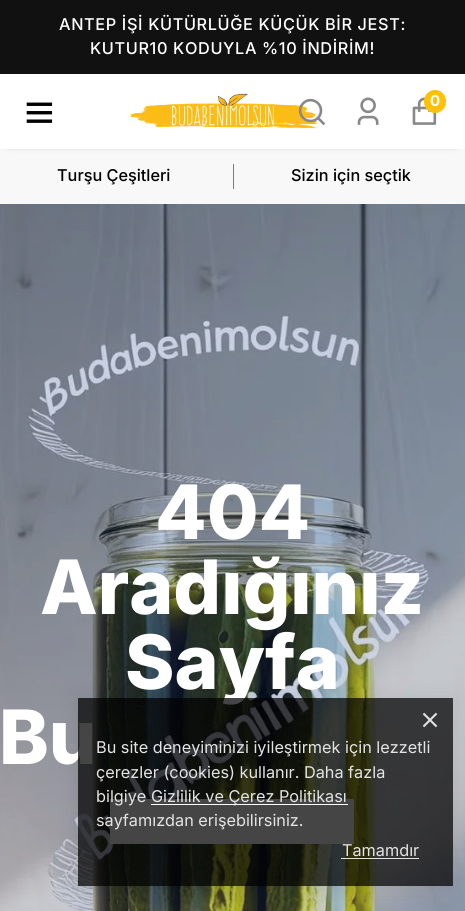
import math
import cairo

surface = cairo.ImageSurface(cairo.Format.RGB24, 465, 911)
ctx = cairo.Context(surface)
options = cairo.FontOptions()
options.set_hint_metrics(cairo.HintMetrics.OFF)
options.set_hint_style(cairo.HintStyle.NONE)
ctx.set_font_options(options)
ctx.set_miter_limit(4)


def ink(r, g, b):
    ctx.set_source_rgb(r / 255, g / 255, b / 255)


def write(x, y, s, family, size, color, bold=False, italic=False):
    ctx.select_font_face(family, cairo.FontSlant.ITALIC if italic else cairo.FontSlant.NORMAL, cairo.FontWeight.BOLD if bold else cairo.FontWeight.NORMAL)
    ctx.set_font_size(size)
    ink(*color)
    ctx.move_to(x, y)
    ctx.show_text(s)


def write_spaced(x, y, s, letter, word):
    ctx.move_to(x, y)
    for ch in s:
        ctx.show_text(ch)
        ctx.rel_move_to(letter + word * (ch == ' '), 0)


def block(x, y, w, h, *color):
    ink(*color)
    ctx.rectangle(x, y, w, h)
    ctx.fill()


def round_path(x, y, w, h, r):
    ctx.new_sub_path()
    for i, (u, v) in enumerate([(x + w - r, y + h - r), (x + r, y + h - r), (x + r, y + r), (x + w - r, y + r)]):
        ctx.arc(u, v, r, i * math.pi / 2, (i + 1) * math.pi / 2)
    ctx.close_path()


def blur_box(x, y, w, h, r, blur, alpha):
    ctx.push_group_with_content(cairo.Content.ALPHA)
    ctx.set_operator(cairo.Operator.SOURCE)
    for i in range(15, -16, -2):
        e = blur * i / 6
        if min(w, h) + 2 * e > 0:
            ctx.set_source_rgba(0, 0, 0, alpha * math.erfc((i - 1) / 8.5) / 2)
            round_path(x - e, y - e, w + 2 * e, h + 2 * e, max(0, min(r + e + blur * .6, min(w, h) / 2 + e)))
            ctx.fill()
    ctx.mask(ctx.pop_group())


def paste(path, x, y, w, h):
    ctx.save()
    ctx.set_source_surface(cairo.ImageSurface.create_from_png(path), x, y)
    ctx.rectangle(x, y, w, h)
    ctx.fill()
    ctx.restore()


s1 = dict(family="Inter", size=15, color=(255, 255, 255), bold=True)
s2 = dict(family="Inter Medium", size=16.25, color=(0, 0, 0))
s3 = dict(family="Inter ExtraBold", size=75, color=(255, 255, 255))
s4 = dict(family="Inter", size=16.25, color=(227, 227, 227))

ink(255, 255, 255)
ctx.paint()
block(0, 0, 465, 74, 17, 17, 17)
ctx.select_font_face("Inter Medium")
ctx.set_font_size(16.25)
ink(255, 255, 255)
write_spaced(59, 30, "ANTEP İŞİ KÜTÜRLÜĞE KÜÇÜK BİR JEST:", 0.65, 0)
write_spaced(90, 54, "KUTUR10 KODUYLA %10 İNDİRİM!", 0.65, 0)
block(0, 149, 465, 55, 248, 248, 248)
ink(152, 152, 152)
blur_box(9, 89, 447, 57, 0, 3, 1)
block(3, 83, 459, 66, 255, 255, 255)
paste("pic1.png", 130, 93, 188, 36)
paste("pic2.png", 298, 98, 28, 28)
paste("pic3.png", 357, 97, 22, 28)
paste("pic4.png", 412, 97, 25, 28)
ink(255, 193, 7)
round_path(424, 90, 22, 23, 11)
ctx.fill()
write(430, 106, "0", **s1)
paste("pic5.png", 26, 102, 27, 21)
write(57, 181, "Turşu Çeşitleri", **s2)
block(233, 164, 1, 25, 124, 124, 124)
write(291, 181, "Sizin için seçtik", **s2)
paste("pic7.png", 0, 204, 465, 707)
block(110, 799, 244, 45, 255, 255, 255)
ctx.save()
ctx.set_fill_rule(cairo.FillRule.EVEN_ODD)
ctx.new_path()
ctx.move_to(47, 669)
ctx.line_to(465, 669)
ctx.line_to(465, 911)
ctx.line_to(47, 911)
ctx.close_path()
ctx.move_to(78, 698)
ctx.line_to(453, 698)
ctx.line_to(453, 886)
ctx.line_to(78, 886)
ctx.close_path()
ctx.clip()
ink(0, 0, 0)
blur_box(78, 700, 375, 189, 0, 10, 0.1)
ctx.restore()
write(125, 689, "Sayfa", **s3)
write(-1, 764, "Bu", **s3)
ctx.set_source_rgba(0, 0, 0, 0.73)
ctx.rectangle(78, 698, 375, 188)
ctx.fill()
paste("pic6.png", 422, 712, 16, 16)
write(96, 753, "Bu site deneyiminizi iyileştirmek için lezzetli", **s4)
write(96, 778, "çerezler (cookies) kullanır. Daha fazla", **s4)
write(96, 802, "bilgiye", **s4)
block(151, 804, 197, 1, 255, 255, 255)
write(151, 802, "Gizlilik ve Çerez Politikası", **s4)
write(96, 826, "sayfamızdan erişebilirsiniz.", **s4)
write(342, 856, "Tamamdır", **s4)
ctx.set_source_rgba(1, 1, 1, 0.86)
ctx.rectangle(341, 858, 78, 1)
ctx.fill()
write(155, 539, "404", **s3)
write(40, 614, "Aradığınız", **s3)
surface.write_to_png("screenshot.png")
